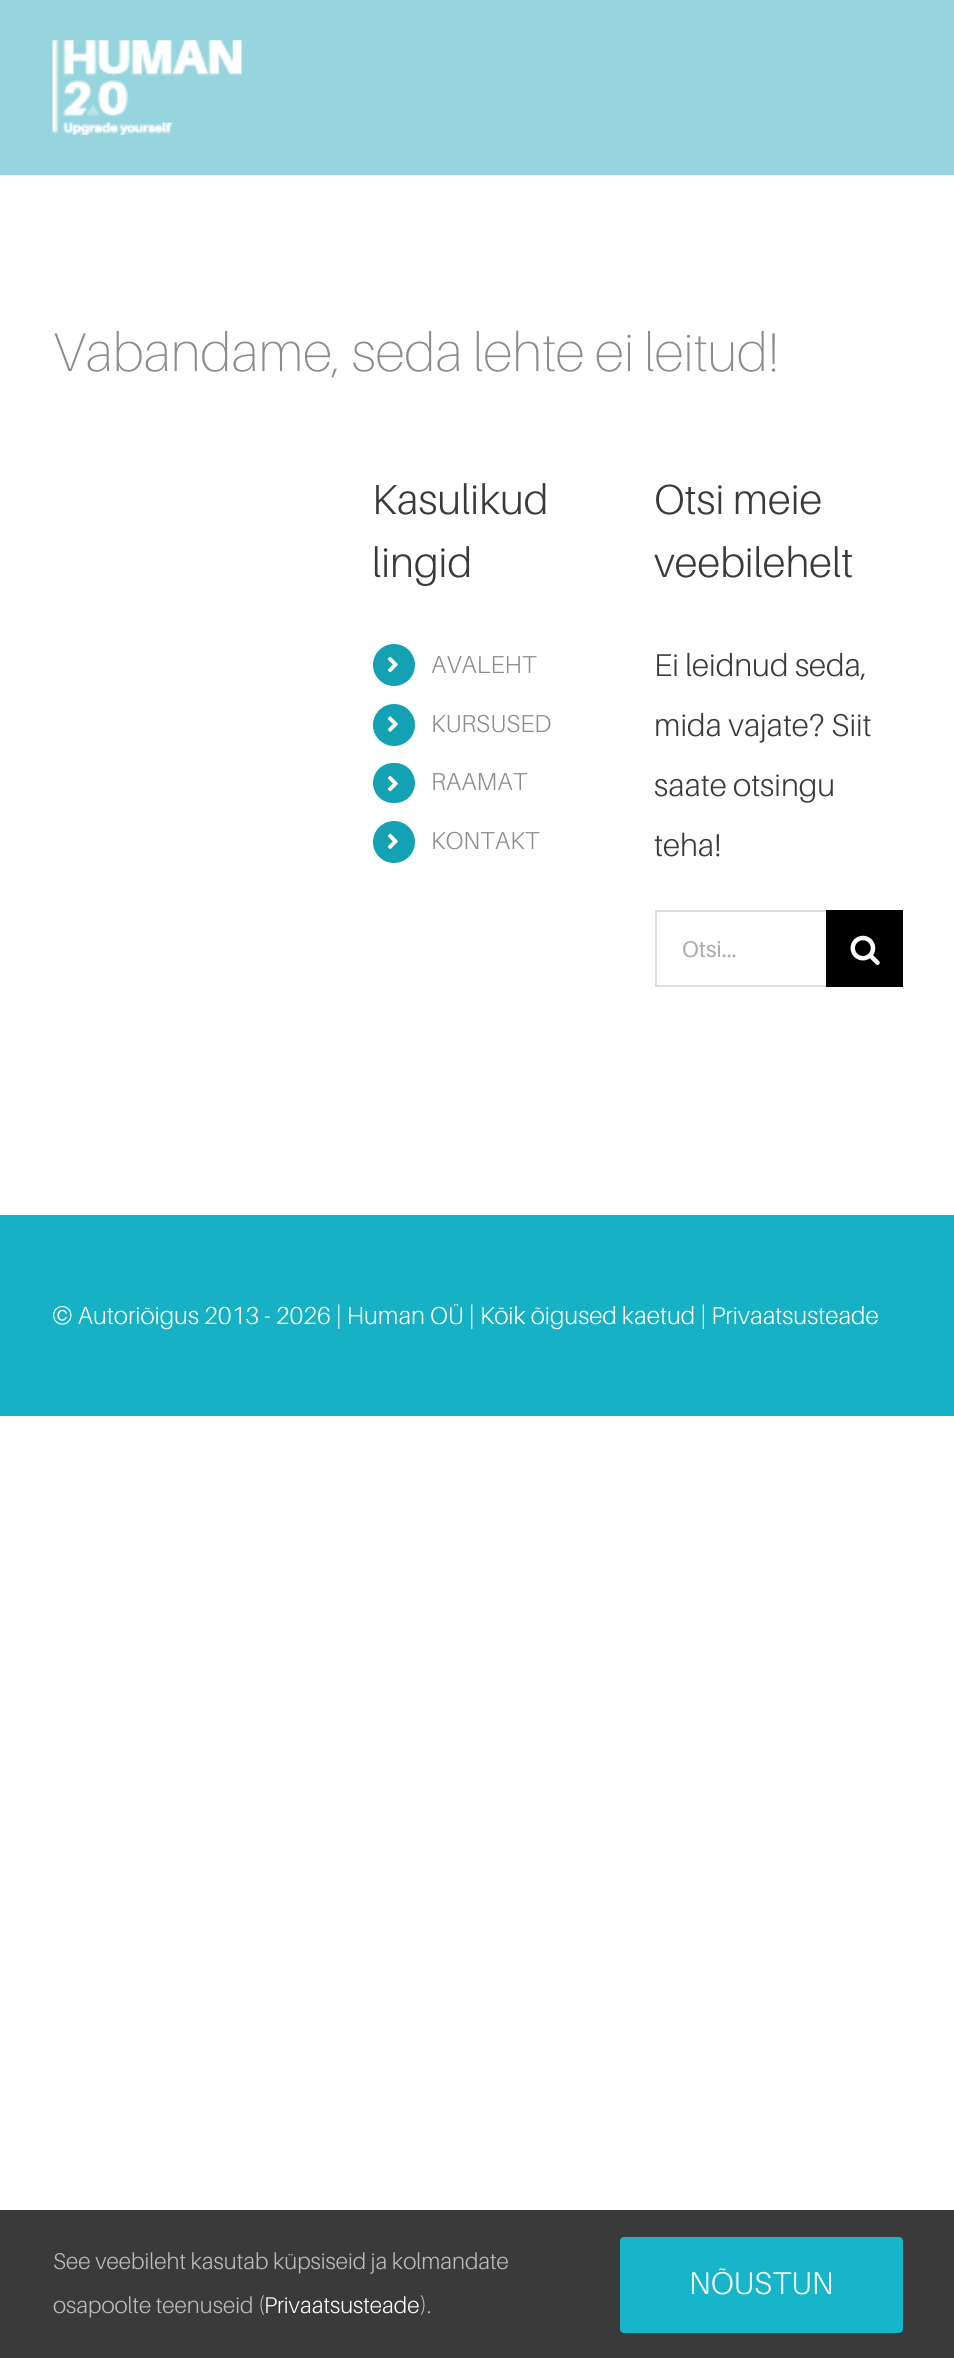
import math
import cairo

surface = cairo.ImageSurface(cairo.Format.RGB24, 954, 2358)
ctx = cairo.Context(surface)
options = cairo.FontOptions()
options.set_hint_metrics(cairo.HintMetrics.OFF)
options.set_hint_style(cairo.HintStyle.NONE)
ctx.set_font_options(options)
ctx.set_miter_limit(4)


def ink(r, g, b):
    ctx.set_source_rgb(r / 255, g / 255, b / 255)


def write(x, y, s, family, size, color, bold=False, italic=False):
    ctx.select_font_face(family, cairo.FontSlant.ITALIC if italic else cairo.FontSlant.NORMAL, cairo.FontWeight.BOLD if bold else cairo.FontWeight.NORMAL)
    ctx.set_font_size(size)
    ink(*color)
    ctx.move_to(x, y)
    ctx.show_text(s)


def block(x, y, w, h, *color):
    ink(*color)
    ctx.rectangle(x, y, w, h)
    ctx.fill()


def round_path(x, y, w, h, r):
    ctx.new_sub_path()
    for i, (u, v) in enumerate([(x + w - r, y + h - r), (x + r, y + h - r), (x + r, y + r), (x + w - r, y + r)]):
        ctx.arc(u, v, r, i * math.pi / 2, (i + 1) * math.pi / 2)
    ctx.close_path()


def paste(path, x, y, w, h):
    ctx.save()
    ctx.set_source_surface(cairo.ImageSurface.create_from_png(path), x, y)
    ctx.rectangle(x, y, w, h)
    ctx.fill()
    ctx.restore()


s1 = dict(family="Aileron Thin", size=54.5, color=(140, 140, 140))
s2 = dict(family="Aileron Light", size=42, color=(58, 58, 58))
s3 = dict(family="Aileron Light", size=24.5, color=(140, 140, 140))
s4 = dict(family="Aileron Light", size=31.5, color=(58, 58, 58))
s5 = dict(family="Aileron", size=22.75, color=(171, 171, 171))
s6 = dict(family="Aileron Light", size=24.5, color=(255, 255, 255))
s7 = dict(family="Aileron Light", size=22.75, color=(189, 189, 189))
s8 = dict(family="Aileron Light", size=22.75, color=(255, 255, 255))
s9 = dict(family="Aileron Light", size=31.5, color=(255, 255, 255))

ink(255, 255, 255)
ctx.paint()
block(0, 0, 954, 175, 151, 213, 222)
paste("pic1.png", 52, 40, 190, 95)
write(53, 371, "Vabandame, seda lehte ei leitud!", **s1)
write(372, 514, "Kasulikud", **s2)
write(372, 577, "lingid", **s2)
ink(20, 161, 179)
ctx.new_path()
ctx.arc(394, 665, 21, 0, 2 * math.pi)
ctx.fill()
paste("pic2.png", 388, 656, 10, 17)
write(431, 673, "AVALEHT", **s3)
ink(20, 161, 179)
ctx.new_path()
ctx.arc(394, 725, 21, 0, 2 * math.pi)
ctx.fill()
paste("pic3.png", 388, 716, 10, 16)
write(431, 732, "KURSUSED", **s3)
ink(20, 161, 179)
round_path(373, 763, 42, 40, 20)
ctx.fill()
paste("pic2.png", 388, 775, 10, 17)
write(431, 790, "RAAMAT", **s3)
ink(20, 161, 179)
ctx.new_path()
ctx.arc(394, 842, 21, 0, 2 * math.pi)
ctx.fill()
paste("pic4.png", 388, 833, 10, 16)
write(431, 849, "KONTAKT", **s3)
write(654, 514, "Otsi meie", **s2)
write(654, 577, "veebilehelt", **s2)
write(654, 676, "Ei leidnud seda,", **s4)
write(654, 736, "mida vajate? Siit", **s4)
write(654, 796, "saate otsingu", **s4)
write(654, 856, "teha!", **s4)
block(655, 910, 171, 2, 222, 222, 222)
block(655, 985, 171, 2, 222, 222, 222)
block(655, 910, 2, 77, 222, 222, 222)
write(682, 957, "Otsi...", **s5)
block(826, 910, 77, 77, 0, 0, 0)
paste("pic5.png", 850, 935, 30, 30)
block(0, 1215, 954, 201, 22, 177, 197)
write(52, 1324, "© Autoriõigus 2013 - 2026 | Human OÜ | Kõik õigused kaetud | Privaatsusteade", **s6)
block(0, 2210, 954, 148, 58, 58, 58)
write(53, 2269, "See veebileht kasutab küpsiseid ja kolmandate", **s7)
write(53, 2313, "osapoolte teenuseid (", **s7)
write(264, 2313, "Privaatsusteade", **s8)
write(420, 2313, ").", **s7)
ink(22, 181, 202)
round_path(620, 2237, 283, 96, 4)
ctx.fill()
write(689, 2294, "NÕUSTUN", **s9)
surface.write_to_png("screenshot.png")
